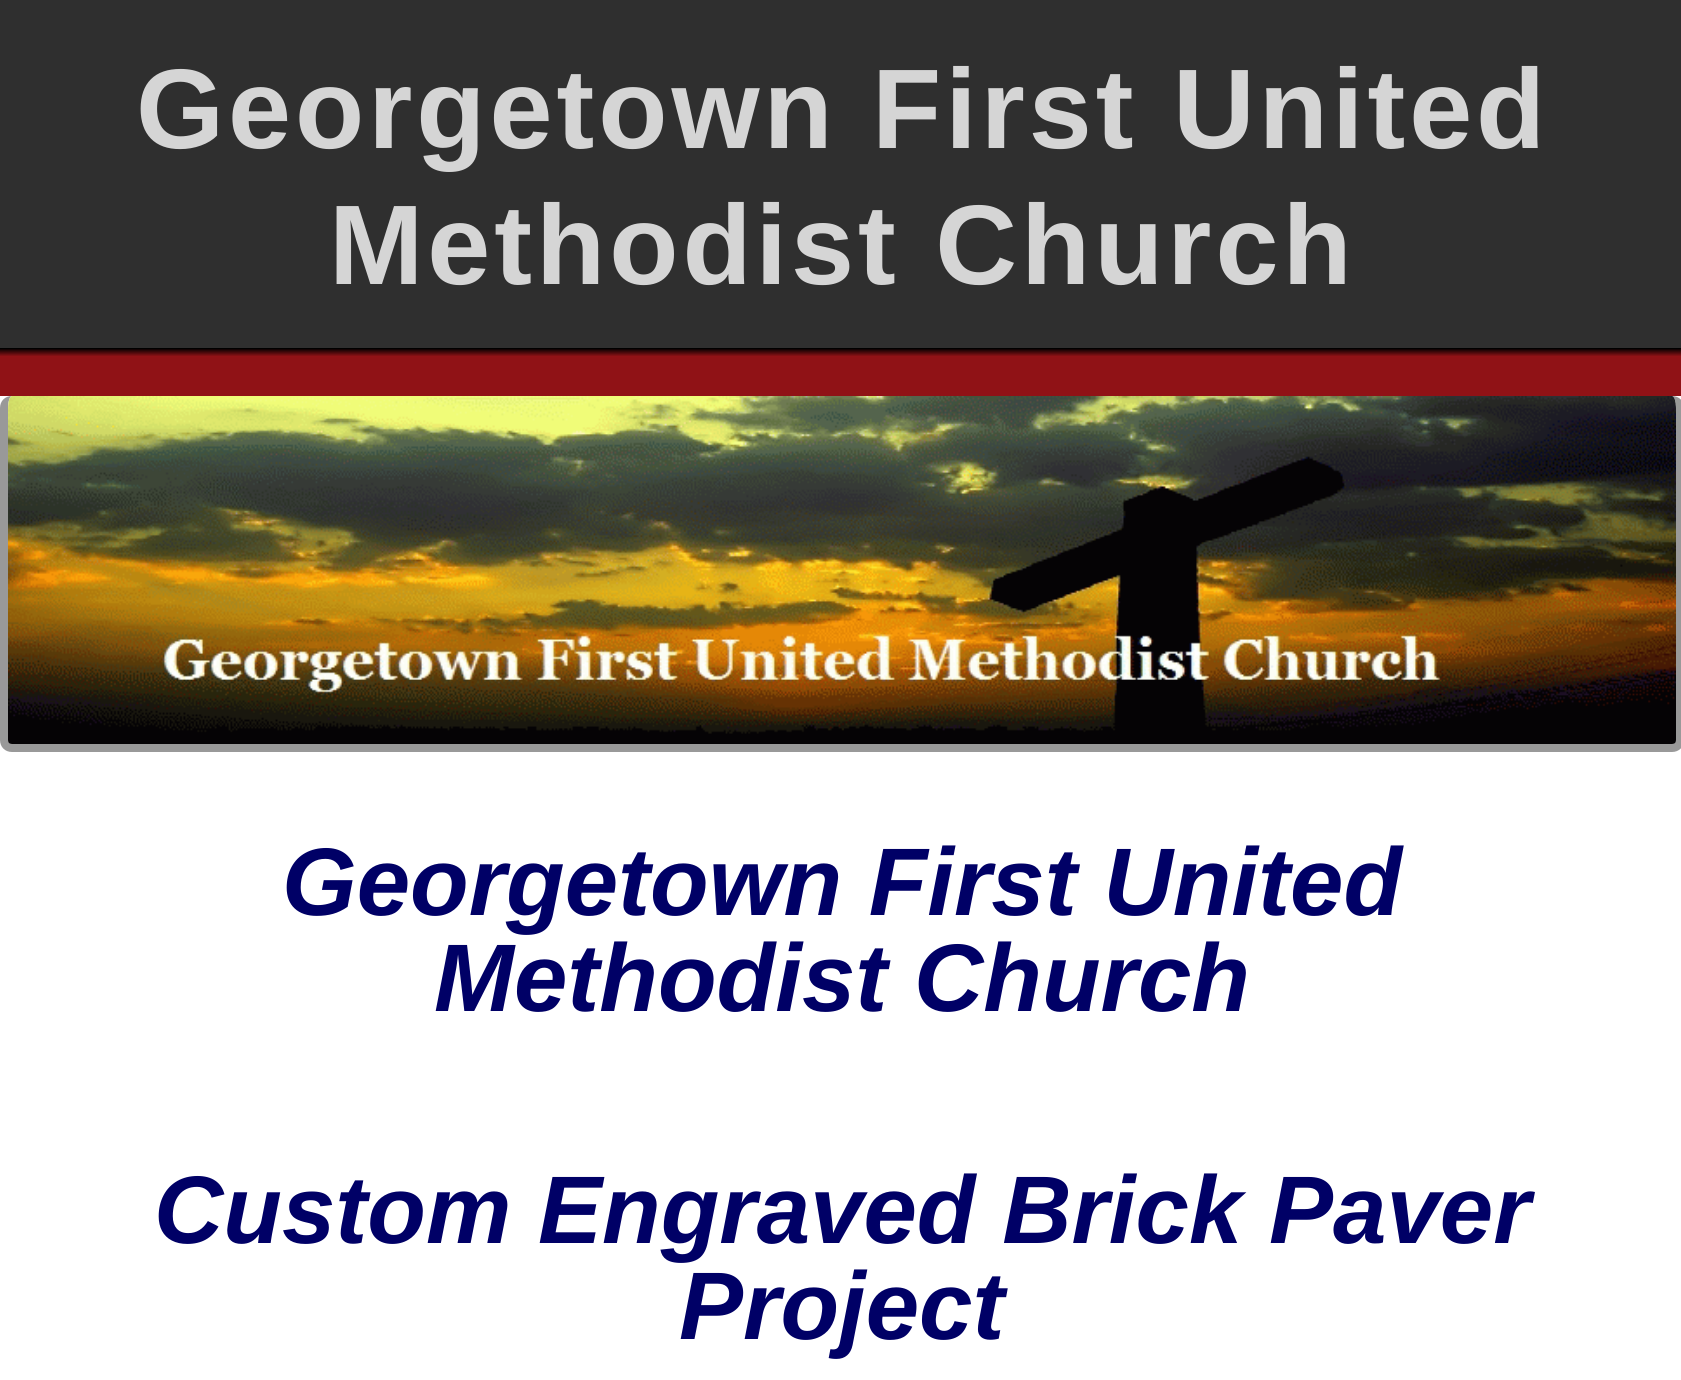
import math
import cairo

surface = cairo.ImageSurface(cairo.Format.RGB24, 1681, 1380)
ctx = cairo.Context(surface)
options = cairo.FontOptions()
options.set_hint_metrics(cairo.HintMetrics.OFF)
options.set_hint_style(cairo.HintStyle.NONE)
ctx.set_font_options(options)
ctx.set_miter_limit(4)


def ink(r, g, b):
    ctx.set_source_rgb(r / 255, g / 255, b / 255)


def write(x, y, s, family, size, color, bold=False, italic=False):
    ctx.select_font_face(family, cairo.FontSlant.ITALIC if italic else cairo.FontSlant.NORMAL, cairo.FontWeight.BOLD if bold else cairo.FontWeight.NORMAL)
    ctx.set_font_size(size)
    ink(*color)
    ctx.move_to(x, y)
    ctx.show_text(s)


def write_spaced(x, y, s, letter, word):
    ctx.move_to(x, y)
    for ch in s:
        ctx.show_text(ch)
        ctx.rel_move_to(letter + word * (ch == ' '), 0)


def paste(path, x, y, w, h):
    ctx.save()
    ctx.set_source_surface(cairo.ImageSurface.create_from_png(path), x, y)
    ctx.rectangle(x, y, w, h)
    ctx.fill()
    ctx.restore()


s1 = dict(family="Liberation Sans", size=96, color=(0, 0, 102), bold=True, italic=True)

ink(255, 255, 255)
ctx.paint()
gradient = cairo.LinearGradient(842, 396, 842, 0)
gradient.add_color_stop_rgba(0.1, 0.565, 0.071, 0.086, 1)
gradient.add_color_stop_rgba(0.12, 0, 0, 0, 1)
gradient.add_color_stop_rgba(0.12, 0.184, 0.184, 0.184, 1)
ctx.set_source(gradient)
ctx.rectangle(0, 0, 1681, 396)
ctx.fill()
ctx.select_font_face("Liberation Sans", cairo.FontSlant.NORMAL, cairo.FontWeight.BOLD)
ctx.set_font_size(113.25)
ink(213, 213, 213)
write_spaced(136, 148, "Georgetown First United", 4, 0)
write_spaced(329, 284, "Methodist Church", 4, 0)
ink(153, 153, 153)
ctx.set_fill_rule(cairo.FillRule.EVEN_ODD)
ctx.new_path()
ctx.move_to(12, 396)
ctx.line_to(1672, 396)
ctx.curve_to(1679, 396, 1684, 401, 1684, 408)
ctx.line_to(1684, 740)
ctx.curve_to(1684, 747, 1679, 752, 1672, 752)
ctx.line_to(12, 752)
ctx.curve_to(5, 752, 0, 747, 0, 740)
ctx.line_to(0, 408)
ctx.curve_to(0, 401, 5, 396, 12, 396)
ctx.close_path()
ctx.move_to(12, 396)
ctx.line_to(1672, 396)
ctx.curve_to(1674, 396, 1676, 401, 1676, 408)
ctx.line_to(1676, 740)
ctx.curve_to(1676, 742, 1674, 744, 1672, 744)
ctx.line_to(12, 744)
ctx.curve_to(10, 744, 8, 742, 8, 740)
ctx.line_to(8, 408)
ctx.curve_to(8, 401, 10, 396, 12, 396)
ctx.close_path()
ctx.fill()
paste("pic1.png", 8, 396, 1668, 348)
write(282, 915, "Georgetown First United", **s1)
write(434, 1011, "Methodist Church", **s1)
write(154, 1243, "Custom Engraved Brick Paver", **s1)
write(679, 1339, "Project", **s1)
surface.write_to_png("screenshot.png")
